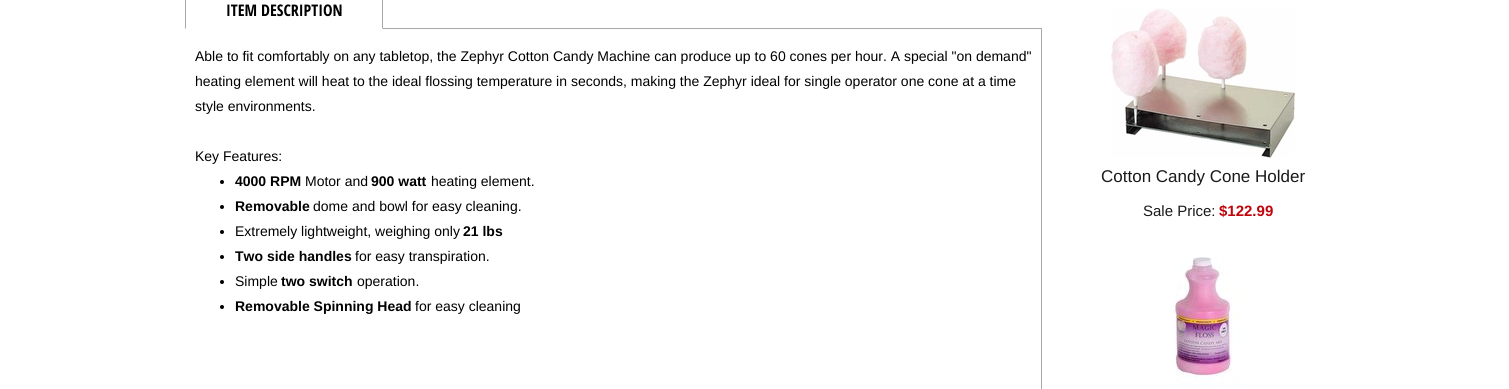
import math
import cairo

surface = cairo.ImageSurface(cairo.Format.RGB24, 1509, 389)
ctx = cairo.Context(surface)
options = cairo.FontOptions()
options.set_hint_metrics(cairo.HintMetrics.OFF)
options.set_hint_style(cairo.HintStyle.NONE)
ctx.set_font_options(options)
ctx.set_miter_limit(4)


def ink(r, g, b):
    ctx.set_source_rgb(r / 255, g / 255, b / 255)


def write(x, y, s, family, size, color, bold=False, italic=False):
    ctx.select_font_face(family, cairo.FontSlant.ITALIC if italic else cairo.FontSlant.NORMAL, cairo.FontWeight.BOLD if bold else cairo.FontWeight.NORMAL)
    ctx.set_font_size(size)
    ink(*color)
    ctx.move_to(x, y)
    ctx.show_text(s)


def block(x, y, w, h, *color):
    ink(*color)
    ctx.rectangle(x, y, w, h)
    ctx.fill()


def paste(path, x, y, w, h):
    ctx.save()
    ctx.set_source_surface(cairo.ImageSurface.create_from_png(path), x, y)
    ctx.rectangle(x, y, w, h)
    ctx.fill()
    ctx.restore()


s1 = dict(family="Open Sans Condensed", size=16, color=(0, 0, 0), bold=True)
s2 = dict(family="Liberation Sans", size=14, color=(0, 0, 0))
s3 = dict(family="Liberation Sans", size=14, color=(0, 0, 0), bold=True)
s4 = dict(family="Liberation Sans", size=17, color=(25, 25, 25))
s5 = dict(family="Liberation Sans", size=15, color=(25, 25, 25))
s6 = dict(family="Liberation Sans", size=15, color=(192, 4, 11), bold=True)

ink(255, 255, 255)
ctx.paint()
block(383, 28, 659, 1, 168, 168, 168)
ctx.new_path()
ctx.move_to(383, -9)
ctx.line_to(383, 29)
ctx.line_to(382, 28)
ctx.line_to(382, -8)
ctx.close_path()
ctx.fill()
ctx.new_path()
ctx.move_to(185, 29)
ctx.line_to(185, -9)
ctx.line_to(186, -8)
ctx.line_to(186, 28)
ctx.close_path()
ctx.fill()
write(226, 16, "ITEM DESCRIPTION", **s1)
block(1041, 29, 1, 360, 168, 168, 168)
write(195, 61, "Able to fit comfortably on any tabletop, the Zephyr Cotton Candy Machine can produce up to 60 cones per hour. A special \"on demand\"", **s2)
write(195, 86, "heating element will heat to the ideal flossing temperature in seconds, making the Zephyr ideal for single operator one cone at a time", **s2)
write(195, 111, "style environments.", **s2)
write(195, 161, "Key Features:", **s2)
ctx.new_path()
ctx.arc(222, 182, 2, 0, 2 * math.pi)
ctx.fill()
write(235, 186, "4000 RPM", **s3)
write(305, 186, "Motor and", **s2)
write(371, 186, "900 watt", **s3)
write(431, 186, "heating element.", **s2)
ctx.new_path()
ctx.arc(222, 207, 2, 0, 2 * math.pi)
ctx.fill()
write(235, 211, "Removable", **s3)
write(313, 211, "dome and bowl for easy cleaning.", **s2)
ctx.new_path()
ctx.arc(222, 232, 2, 0, 2 * math.pi)
ctx.fill()
write(235, 236, "Extremely lightweight, weighing only", **s2)
write(463, 236, "21 lbs", **s3)
ctx.new_path()
ctx.arc(222, 257, 2, 0, 2 * math.pi)
ctx.fill()
write(235, 261, "Two side handles", **s3)
write(355, 261, "for easy transpiration.", **s2)
ctx.new_path()
ctx.arc(222, 282, 2, 0, 2 * math.pi)
ctx.fill()
write(235, 286, "Simple", **s2)
write(281, 286, "two switch", **s3)
write(357, 286, "operation.", **s2)
ctx.new_path()
ctx.arc(222, 307, 2, 0, 2 * math.pi)
ctx.fill()
write(235, 311, "Removable Spinning Head", **s3)
write(415, 311, "for easy cleaning", **s2)
paste("pic1.png", 1111, 8, 184, 150)
write(1101, 182, "Cotton Candy Cone Holder", **s4)
write(1143, 216, "Sale Price:", **s5)
write(1219, 216, "$122.99", **s6)
paste("pic2.png", 1173, 257, 67, 128)
surface.write_to_png("screenshot.png")
